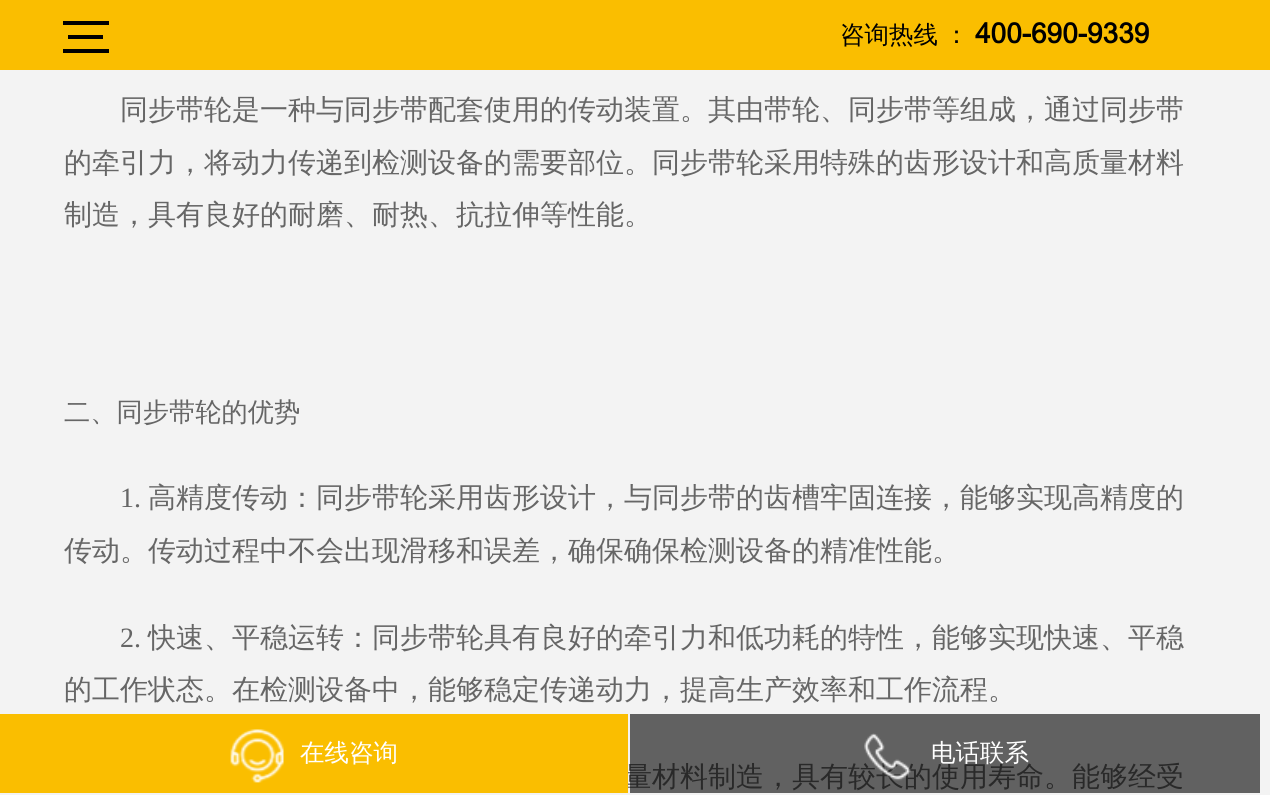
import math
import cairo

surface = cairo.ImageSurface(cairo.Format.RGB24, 1270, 795)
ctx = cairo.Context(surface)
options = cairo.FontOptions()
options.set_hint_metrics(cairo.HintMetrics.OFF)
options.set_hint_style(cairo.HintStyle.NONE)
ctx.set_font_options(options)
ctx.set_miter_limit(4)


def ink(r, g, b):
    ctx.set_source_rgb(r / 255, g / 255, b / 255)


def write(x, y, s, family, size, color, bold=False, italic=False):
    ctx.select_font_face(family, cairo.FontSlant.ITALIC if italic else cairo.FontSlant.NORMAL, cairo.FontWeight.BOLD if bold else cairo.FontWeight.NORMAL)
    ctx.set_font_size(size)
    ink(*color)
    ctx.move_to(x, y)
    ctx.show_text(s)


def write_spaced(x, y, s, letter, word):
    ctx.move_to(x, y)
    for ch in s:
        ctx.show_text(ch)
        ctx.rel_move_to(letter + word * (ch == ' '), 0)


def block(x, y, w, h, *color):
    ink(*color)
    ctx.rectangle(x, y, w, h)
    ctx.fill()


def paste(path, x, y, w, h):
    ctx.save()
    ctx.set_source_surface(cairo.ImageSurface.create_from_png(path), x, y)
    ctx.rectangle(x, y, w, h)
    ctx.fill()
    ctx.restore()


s1 = dict(family="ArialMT", size=28, color=(0, 0, 0), bold=True)
s2 = dict(family="WenQuanYi Zen Hei Medium", size=28, color=(102, 102, 102))
s3 = dict(family="WenQuanYi Zen Hei Medium", size=26.25, color=(102, 102, 102))
s4 = dict(family="Liberation Serif", size=28, color=(102, 102, 102))
s5 = dict(family="WenQuanYi Zen Hei Medium", size=24.5, color=(255, 255, 255))

ink(243, 243, 243)
ctx.paint()
block(0, 0, 1270, 70, 250, 190, 0)
block(63, 21, 46, 4, 0, 0, 0)
block(68, 35, 35, 4, 0, 0, 0)
block(63, 49, 46, 4, 0, 0, 0)
ctx.select_font_face("WenQuanYi Zen Hei Medium")
ctx.set_font_size(24.5)
write_spaced(840, 43, "咨询热线 ：", 0, -1)
write(975, 43, "400-690-9339", **s1)
write(120, 119, "同步带轮是一种与同步带配套使用的传动装置。其由带轮、同步带等组成，通过同步带", **s2)
write(64, 172, "的牵引力，将动力传递到检测设备的需要部位。同步带轮采用特殊的齿形设计和高质量材料", **s2)
write(64, 224, "制造，具有良好的耐磨、耐热、抗拉伸等性能。", **s2)
write(64, 421, "二、同步带轮的优势", **s3)
write(120, 507, "1.", **s4)
write(148, 507, "高精度传动：同步带轮采用齿形设计，与同步带的齿槽牢固连接，能够实现高精度的", **s2)
write(64, 560, "传动。传动过程中不会出现滑移和误差，确保确保检测设备的精准性能。", **s2)
write(120, 647, "2.", **s4)
write(148, 647, "快速、平稳运转：同步带轮具有良好的牵引力和低功耗的特性，能够实现快速、平稳", **s2)
write(64, 699, "的工作状态。在检测设备中，能够稳定传递动力，提高生产效率和工作流程。", **s2)
write(624, 786, "量材料制造，具有较长的使用寿命。能够经受", **s2)
block(0, 714, 628, 79, 250, 190, 0)
paste("pic1.png", 230, 729, 54, 54)
write(300, 761, "在线咨询", **s5)
ctx.set_source_rgba(0, 0, 0, 0.6)
ctx.rectangle(630, 714, 630, 79)
ctx.fill()
paste("pic2.png", 864, 733, 47, 48)
write(931, 761, "电话联系", **s5)
surface.write_to_png("screenshot.png")
